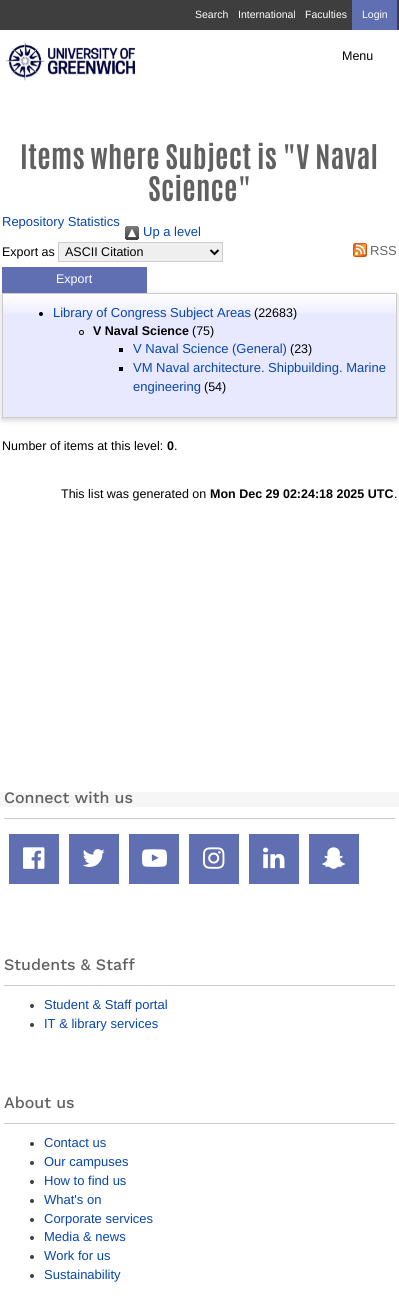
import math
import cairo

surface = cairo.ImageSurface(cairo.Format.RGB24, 399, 1298)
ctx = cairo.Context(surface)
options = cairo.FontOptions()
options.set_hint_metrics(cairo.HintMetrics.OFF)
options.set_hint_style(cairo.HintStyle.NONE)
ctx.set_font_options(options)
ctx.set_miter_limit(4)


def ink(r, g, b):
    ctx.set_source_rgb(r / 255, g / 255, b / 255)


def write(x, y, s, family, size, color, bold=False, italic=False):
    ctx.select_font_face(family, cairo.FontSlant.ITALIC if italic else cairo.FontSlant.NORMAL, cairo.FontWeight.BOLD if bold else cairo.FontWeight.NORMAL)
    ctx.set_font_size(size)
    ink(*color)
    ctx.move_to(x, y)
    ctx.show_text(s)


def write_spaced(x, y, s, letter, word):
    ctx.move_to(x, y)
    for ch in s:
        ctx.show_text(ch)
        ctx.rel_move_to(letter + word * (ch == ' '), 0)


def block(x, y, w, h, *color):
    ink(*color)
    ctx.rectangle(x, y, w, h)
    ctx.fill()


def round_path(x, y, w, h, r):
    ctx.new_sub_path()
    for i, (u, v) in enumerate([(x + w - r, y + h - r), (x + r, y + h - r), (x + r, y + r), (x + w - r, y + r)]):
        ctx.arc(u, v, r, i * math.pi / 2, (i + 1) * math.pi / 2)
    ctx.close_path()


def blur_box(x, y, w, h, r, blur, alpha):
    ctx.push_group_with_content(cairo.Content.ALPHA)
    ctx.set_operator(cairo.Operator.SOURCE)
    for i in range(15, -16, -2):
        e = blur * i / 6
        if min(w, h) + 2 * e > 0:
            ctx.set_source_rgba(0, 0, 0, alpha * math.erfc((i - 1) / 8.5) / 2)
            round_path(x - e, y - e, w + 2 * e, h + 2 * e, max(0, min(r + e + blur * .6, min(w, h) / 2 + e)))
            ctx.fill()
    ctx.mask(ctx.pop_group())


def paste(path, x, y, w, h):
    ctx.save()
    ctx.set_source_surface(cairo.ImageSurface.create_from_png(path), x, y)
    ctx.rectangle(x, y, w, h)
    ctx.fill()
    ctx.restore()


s1 = dict(family="Liberation Sans", size=10.5, color=(255, 255, 255))
s2 = dict(family="Liberation Sans", size=12.5, color=(0, 0, 0))
s3 = dict(family="Liberation Sans", size=13, color=(6, 69, 173))
s4 = dict(family="Liberation Sans", size=12.5, color=(255, 255, 255))
s5 = dict(family="Liberation Sans", size=13, color=(102, 102, 102))
s6 = dict(family="Liberation Sans", size=12.5, color=(0, 0, 0), bold=True)
s7 = dict(family="Work Sans Medium", size=16, color=(96, 96, 96))

ink(255, 255, 255)
ctx.paint()
block(0, 0, 399, 30, 62, 62, 62)
write(195, 18, "Search", **s1)
write(238, 18, "International", **s1)
write(305, 18, "Faculties", **s1)
block(352, 0, 45, 30, 96, 110, 178)
write(362, 18, "Login", **s1)
paste("pic1.png", 5, 41, 130, 40)
write(342, 60, "Menu", **s2)
ctx.select_font_face("Antonio", cairo.FontSlant.NORMAL, cairo.FontWeight.BOLD)
ctx.set_font_size(28.75)
ink(96, 96, 96)
write_spaced(20, 169, "Items where Subject is \"V Naval", 0.25, 0)
write_spaced(148, 201, "Science\"", 0.25, 0)
write(2, 226, "Repository Statistics", **s3)
paste("pic2.png", 125, 226, 14, 14)
write(143, 236, "Up a level", **s3)
write(2, 256, "Export as", **s2)
ink(239, 239, 239)
ctx.rectangle(58.5, 242.5, 164, 19)
ctx.fill_preserve()
ink(204, 204, 204)
ctx.set_line_width(1)
ctx.stroke()
ctx.new_path()
ctx.move_to(210.5, 250)
ctx.line_to(214.5, 254)
ctx.line_to(218.5, 250)
ink(0, 0, 0)
ctx.set_line_width(2)
ctx.stroke()
write(65, 256, "ASCII Citation", **s2)
ink(100, 100, 100)
blur_box(2, 295, 395, 125, 0, 3, 0.3)
block(2, 267, 145, 26, 96, 110, 178)
write(56, 283, "Export", **s4)
paste("pic3.png", 353, 243, 14, 14)
write(370, 255, "RSS", **s5)
block(3, 295, 393, 122, 232, 232, 255)
paste("pic4.png", 3, 294, 393, 20)
ctx.rectangle(2.5, 293.5, 394, 124)
ink(204, 204, 204)
ctx.set_line_width(1)
ctx.stroke()
ink(0, 0, 0)
ctx.arc(41, 314, 2, 0, 2 * math.pi)
ctx.fill()
write(53, 317, "Library of Congress Subject Areas", **s3)
write(254, 317, "(22683)", **s2)
ctx.new_path()
ctx.arc(81.5, 332.5, 2, 0, 2 * math.pi)
ctx.stroke()
write(93, 335, "V Naval Science", **s6)
write(192, 335, "(75)", **s2)
block(119, 348, 4, 4, 0, 0, 0)
write(133, 353, "V Naval Science (General)", **s3)
write(290, 353, "(23)", **s2)
block(119, 367, 4, 4, 0, 0, 0)
write(133, 372, "VM Naval architecture. Shipbuilding. Marine", **s3)
write(133, 391, "engineering", **s3)
write(204, 391, "(54)", **s2)
write(2, 450, "Number of items at this level:", **s2)
write(167, 450, "0", **s6)
write(174, 450, ".", **s2)
write(61, 498, "This list was generated on", **s2)
write(210, 498, "Mon Dec 29 02:24:18 2025 UTC", **s6)
write(394, 498, ".", **s2)
block(0, 792, 399, 15, 246, 246, 246)
block(4, 818, 391, 1, 204, 204, 204)
write(4, 803, "Connect with us", **s7)
block(9, 834, 50, 50, 96, 110, 178)
paste("pic5.png", 23, 847, 22, 22)
block(69, 834, 50, 50, 96, 110, 178)
paste("pic6.png", 82, 849, 23, 18)
block(129, 834, 50, 50, 96, 110, 178)
paste("pic7.png", 142, 849, 25, 18)
block(189, 834, 50, 50, 96, 110, 178)
paste("pic8.png", 203, 847, 22, 22)
block(249, 834, 50, 50, 96, 110, 178)
paste("pic9.png", 263, 847, 22, 22)
block(309, 834, 50, 50, 96, 110, 178)
paste("pic10.png", 322, 847, 23, 22)
block(4, 985, 391, 1, 204, 204, 204)
write(4, 970, "Students & Staff", **s7)
ink(62, 62, 62)
ctx.new_path()
ctx.arc(32, 1006, 2, 0, 2 * math.pi)
ctx.fill()
write(44, 1009, "Student & Staff portal", **s3)
ink(62, 62, 62)
ctx.new_path()
ctx.arc(32, 1025, 2, 0, 2 * math.pi)
ctx.fill()
write(44, 1028, "IT & library services", **s3)
block(4, 1123, 391, 1, 204, 204, 204)
write(4, 1108, "About us", **s7)
ink(62, 62, 62)
ctx.new_path()
ctx.arc(32, 1144, 2, 0, 2 * math.pi)
ctx.fill()
write(44, 1147, "Contact us", **s3)
ink(62, 62, 62)
ctx.new_path()
ctx.arc(32, 1163, 2, 0, 2 * math.pi)
ctx.fill()
write(44, 1166, "Our campuses", **s3)
ink(62, 62, 62)
ctx.new_path()
ctx.arc(32, 1182, 2, 0, 2 * math.pi)
ctx.fill()
write(44, 1185, "How to find us", **s3)
ink(62, 62, 62)
ctx.new_path()
ctx.arc(32, 1201, 2, 0, 2 * math.pi)
ctx.fill()
write(44, 1204, "What's on", **s3)
ink(62, 62, 62)
ctx.new_path()
ctx.arc(32, 1220, 2, 0, 2 * math.pi)
ctx.fill()
write(44, 1223, "Corporate services", **s3)
ink(62, 62, 62)
ctx.new_path()
ctx.arc(32, 1238, 2, 0, 2 * math.pi)
ctx.fill()
write(44, 1241, "Media & news", **s3)
ink(62, 62, 62)
ctx.new_path()
ctx.arc(32, 1257, 2, 0, 2 * math.pi)
ctx.fill()
write(44, 1260, "Work for us", **s3)
ink(62, 62, 62)
ctx.new_path()
ctx.arc(32, 1276, 2, 0, 2 * math.pi)
ctx.fill()
write(44, 1279, "Sustainability", **s3)
surface.write_to_png("screenshot.png")
